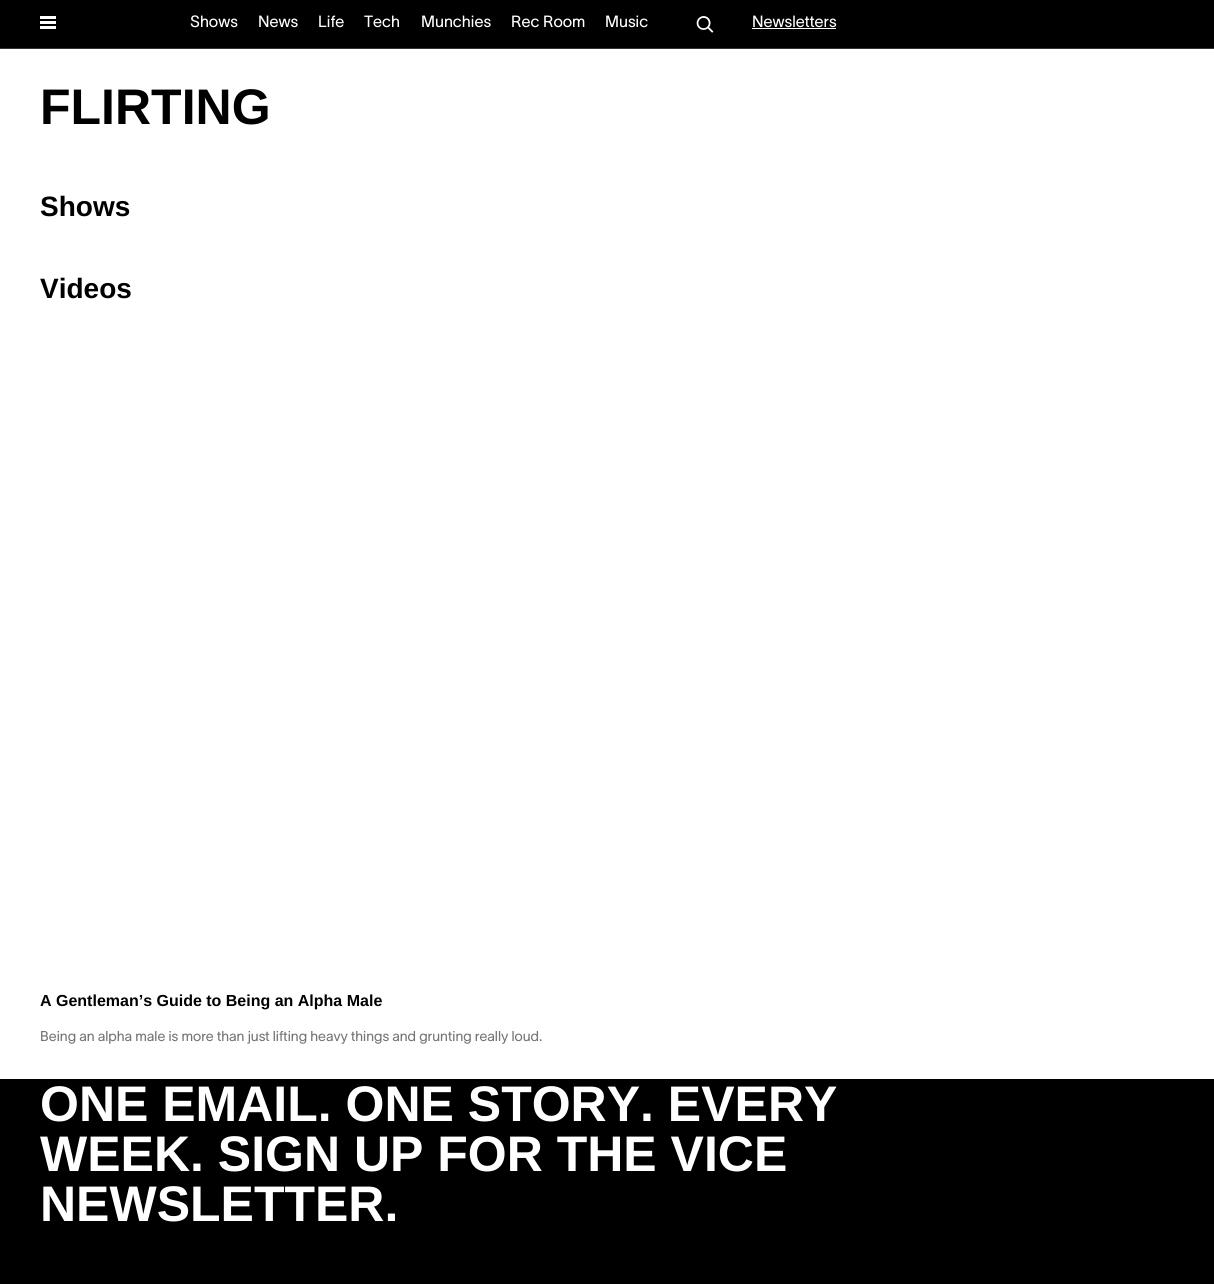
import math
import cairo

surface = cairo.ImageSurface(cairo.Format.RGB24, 1214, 1284)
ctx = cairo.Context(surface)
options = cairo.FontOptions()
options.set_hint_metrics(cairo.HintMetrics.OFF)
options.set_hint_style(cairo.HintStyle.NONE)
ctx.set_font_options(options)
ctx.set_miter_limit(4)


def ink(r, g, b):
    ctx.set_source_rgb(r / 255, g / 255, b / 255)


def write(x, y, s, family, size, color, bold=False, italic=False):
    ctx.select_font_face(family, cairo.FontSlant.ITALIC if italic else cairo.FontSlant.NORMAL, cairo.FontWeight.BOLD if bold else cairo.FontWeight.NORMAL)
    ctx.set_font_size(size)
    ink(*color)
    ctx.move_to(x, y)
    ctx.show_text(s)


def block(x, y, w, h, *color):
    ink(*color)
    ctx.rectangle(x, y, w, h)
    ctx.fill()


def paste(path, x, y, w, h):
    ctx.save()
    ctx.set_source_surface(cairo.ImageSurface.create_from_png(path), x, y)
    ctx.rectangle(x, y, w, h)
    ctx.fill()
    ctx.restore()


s1 = dict(family="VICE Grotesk", size=16, color=(255, 255, 255))
s2 = dict(family="Liberation Sans", size=50, color=(0, 0, 0), bold=True)
s3 = dict(family="Liberation Sans", size=28, color=(0, 0, 0), bold=True)
s4 = dict(family="Liberation Sans", size=16, color=(0, 0, 0), bold=True)
s5 = dict(family="VICE Grotesk", size=14, color=(117, 117, 117))
s6 = dict(family="Liberation Sans", size=50, color=(255, 255, 255), bold=True)

ink(255, 255, 255)
ctx.paint()
block(0, 0, 1214, 48, 0, 0, 0)
block(0, 48, 1214, 1, 51, 51, 51)
paste("pic1.png", 40, 16, 16, 13)
write(190, 27, "Shows", **s1)
write(258, 27, "News", **s1)
write(318, 27, "Life", **s1)
write(364, 27, "Tech", **s1)
write(421, 27, "Munchies", **s1)
write(511, 27, "Rec Room", **s1)
write(605, 27, "Music", **s1)
paste("pic2.png", 696, 16, 18, 17)
write(752, 27, "Newsletters", **s1)
block(752, 28, 84, 1, 255, 255, 255)
write(40, 124, "FLIRTING", **s2)
write(40, 216, "Shows", **s3)
write(40, 298, "Videos", **s3)
write(40, 1006, "A Gentleman’s Guide to Being an Alpha Male", **s4)
write(40, 1041, "Being an alpha male is more than just lifting heavy things and grunting really loud.", **s5)
block(0, 1079, 1214, 205, 0, 0, 0)
write(40, 1121, "ONE EMAIL. ONE STORY. EVERY", **s6)
write(40, 1171, "WEEK. SIGN UP FOR THE VICE", **s6)
write(40, 1221, "NEWSLETTER.", **s6)
surface.write_to_png("screenshot.png")
